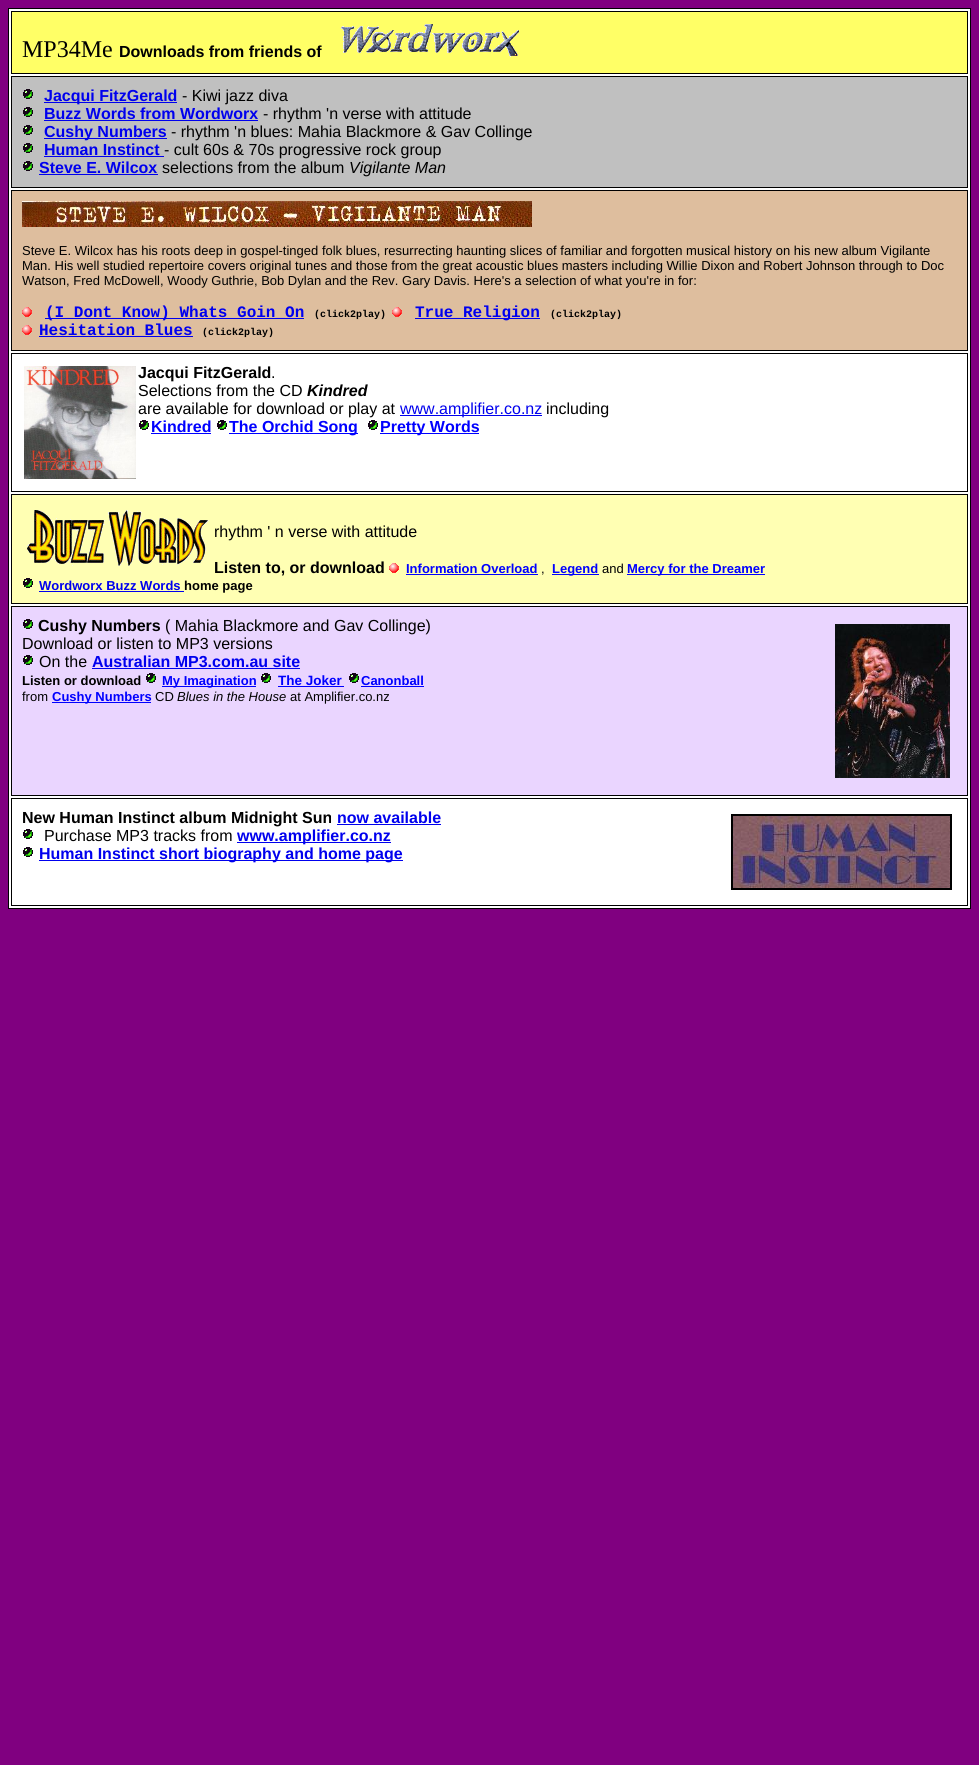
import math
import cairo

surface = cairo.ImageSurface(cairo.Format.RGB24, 979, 1765)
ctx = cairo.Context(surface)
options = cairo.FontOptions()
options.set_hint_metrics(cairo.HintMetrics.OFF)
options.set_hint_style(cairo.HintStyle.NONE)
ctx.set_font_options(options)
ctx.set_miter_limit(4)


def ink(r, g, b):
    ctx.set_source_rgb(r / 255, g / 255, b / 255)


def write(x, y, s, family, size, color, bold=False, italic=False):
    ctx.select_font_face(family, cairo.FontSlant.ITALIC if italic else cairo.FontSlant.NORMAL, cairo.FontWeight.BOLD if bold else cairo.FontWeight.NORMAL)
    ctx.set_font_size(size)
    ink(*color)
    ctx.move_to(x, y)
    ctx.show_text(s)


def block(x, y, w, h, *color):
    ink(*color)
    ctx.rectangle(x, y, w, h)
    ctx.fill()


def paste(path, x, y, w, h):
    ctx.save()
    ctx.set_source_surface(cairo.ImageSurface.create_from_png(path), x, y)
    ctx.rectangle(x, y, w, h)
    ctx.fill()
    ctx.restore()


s1 = dict(family="Liberation Serif", size=24, color=(0, 0, 0))
s2 = dict(family="Liberation Sans", size=16, color=(0, 0, 0), bold=True)
s3 = dict(family="Liberation Sans", size=16, color=(0, 0, 238), bold=True)
s4 = dict(family="Liberation Sans", size=16, color=(0, 0, 0))
s5 = dict(family="Liberation Sans", size=16, color=(0, 0, 0), italic=True)
s6 = dict(family="Liberation Sans", size=13, color=(0, 0, 0))
s7 = dict(family="Liberation Mono", size=16, color=(0, 0, 238), bold=True)
s8 = dict(family="Liberation Mono", size=10, color=(0, 0, 0), bold=True)
s9 = dict(family="Liberation Sans", size=16, color=(0, 0, 0), bold=True, italic=True)
s10 = dict(family="Liberation Sans", size=16, color=(0, 0, 238))
s11 = dict(family="Liberation Sans", size=16, color=(0, 0, 255), bold=True)
s12 = dict(family="Liberation Sans", size=13, color=(0, 0, 255), bold=True)
s13 = dict(family="Liberation Sans", size=13, color=(0, 0, 238), bold=True)
s14 = dict(family="Liberation Sans", size=13, color=(0, 0, 0), bold=True)
s15 = dict(family="Liberation Sans", size=13.5, color=(0, 0, 255), bold=True)
s16 = dict(family="Liberation Sans", size=13, color=(0, 0, 0), italic=True)

ink(128, 0, 128)
ctx.paint()
ink(255, 255, 255)
ctx.rectangle(8.5, 8.5, 962, 900)
ctx.fill_preserve()
ink(0, 0, 0)
ctx.set_line_width(1)
ctx.stroke()
ink(255, 255, 102)
ctx.rectangle(11.5, 11.5, 956, 62)
ctx.fill_preserve()
ink(0, 0, 0)
ctx.stroke()
write(22, 57, "MP34Me", **s1)
write(119, 57, "Downloads from friends of", **s2)
paste("pic1.png", 341, 24, 178, 33)
ink(192, 192, 192)
ctx.rectangle(11.5, 76.5, 956, 111)
ctx.fill_preserve()
ink(0, 0, 0)
ctx.stroke()
paste("pic2.png", 23, 89, 10, 10)
block(44, 102, 133, 1, 0, 0, 238)
write(44, 101, "Jacqui FitzGerald", **s3)
write(182, 101, "- Kiwi jazz diva", **s4)
paste("pic2.png", 23, 107, 10, 10)
write(44, 119, "Buzz Words from Wordworx", **s3)
block(44, 120, 214, 1, 0, 0, 238)
write(263, 119, "- rhythm 'n verse with attitude", **s4)
paste("pic2.png", 23, 125, 10, 10)
block(44, 138, 123, 1, 0, 0, 238)
write(44, 137, "Cushy Numbers", **s3)
write(171, 137, "- rhythm 'n blues: Mahia Blackmore & Gav Collinge", **s4)
paste("pic2.png", 23, 143, 10, 10)
write(44, 155, "Human Instinct", **s3)
write(164, 155, "- cult 60s & 70s progressive rock group", **s4)
block(44, 156, 120, 1, 0, 0, 238)
paste("pic2.png", 23, 161, 10, 10)
write(39, 173, "Steve E. Wilcox", **s3)
block(39, 174, 119, 1, 0, 0, 238)
write(162, 173, "selections from the album", **s4)
write(349, 173, "Vigilante Man", **s5)
ink(222, 190, 158)
ctx.rectangle(11.5, 190.5, 956, 160)
ctx.fill_preserve()
ink(0, 0, 0)
ctx.stroke()
paste("pic3.png", 22, 201, 510, 26)
write(22, 255, "Steve E. Wilcox has his roots deep in gospel-tinged folk blues, resurrecting haunting slices of familiar and forgotten musical history on his new album Vigilante", **s6)
write(22, 270, "Man. His well studied repertoire covers original tunes and those from the great acoustic blues masters including Willie Dixon and Robert Johnson through to Doc", **s6)
write(22, 285, "Watson, Fred McDowell, Woody Guthrie, Bob Dylan and the Rev. Gary Davis. Here's a selection of what you're in for:", **s6)
paste("pic4.png", 22, 307, 10, 10)
block(45, 318, 259, 1, 0, 0, 238)
write(45, 317, "(I_Dont_Know) Whats Goin_On", **s7)
write(314, 317, "(click2play)", **s8)
paste("pic4.png", 392, 307, 10, 10)
block(415, 318, 125, 1, 0, 0, 238)
write(415, 317, "True_Religion", **s7)
write(550, 317, "(click2play)", **s8)
paste("pic4.png", 22, 325, 10, 10)
block(39, 336, 154, 1, 0, 0, 238)
write(39, 335, "Hesitation_Blues", **s7)
write(202, 335, "(click2play)", **s8)
ctx.rectangle(11.5, 353.5, 956, 138)
ctx.stroke()
paste("pic5.png", 24, 366, 112, 113)
write(138, 378, "Jacqui FitzGerald", **s2)
write(271, 378, ".", **s4)
write(138, 396, "Selections from the CD", **s4)
write(307, 396, "Kindred", **s9)
write(138, 414, "are available for download or play at", **s4)
block(400, 415, 142, 1, 0, 0, 238)
write(400, 414, "www.amplifier.co.nz", **s10)
write(546, 414, "including", **s4)
paste("pic6.png", 139, 420, 10, 10)
write(151, 432, "Kindred", **s11)
block(151, 433, 60, 1, 0, 0, 255)
paste("pic6.png", 217, 420, 10, 10)
block(229, 433, 129, 1, 0, 0, 255)
write(229, 432, "The Orchid Song", **s11)
paste("pic6.png", 368, 420, 10, 10)
block(380, 433, 99, 1, 0, 0, 255)
write(380, 432, "Pretty Words", **s11)
ink(255, 255, 179)
ctx.rectangle(11.5, 494.5, 956, 109)
ctx.fill_preserve()
ink(0, 0, 0)
ctx.stroke()
paste("pic7.png", 27, 510, 182, 56)
write(214, 537, "rhythm ' n verse with attitude", **s4)
write(214, 573, "Listen to, or download", **s2)
paste("pic8.png", 389, 563, 10, 10)
write(406, 573, "Information Overload", **s12)
write(541, 573, ",", **s6)
block(406, 574, 132, 1, 0, 0, 255)
block(552, 574, 47, 1, 0, 0, 255)
write(552, 573, "Legend", **s12)
write(602, 573, "and", **s6)
block(627, 574, 138, 1, 0, 0, 255)
write(627, 573, "Mercy for the Dreamer", **s12)
paste("pic9.png", 23, 578, 10, 10)
write(39, 590, "Wordworx Buzz Words", **s13)
write(184, 590, "home page", **s14)
block(39, 591, 145, 1, 0, 0, 238)
ink(234, 213, 255)
ctx.rectangle(11.5, 606.5, 956, 189)
ctx.fill_preserve()
ink(0, 0, 0)
ctx.stroke()
paste("pic10.png", 23, 619, 10, 10)
write(38, 631, "Cushy Numbers", **s2)
write(165, 631, "( Mahia Blackmore and Gav Collinge)", **s4)
paste("pic11.png", 835, 624, 115, 154)
write(22, 649, "Download or listen to MP3 versions", **s4)
paste("pic10.png", 23, 655, 10, 10)
write(39, 667, "On the", **s4)
write(92, 667, "Australian MP3.com.au site", **s3)
block(92, 668, 208, 1, 0, 0, 238)
write(22, 685, "Listen or download", **s14)
paste("pic10.png", 146, 673, 10, 10)
block(162, 686, 94, 1, 0, 0, 255)
write(162, 685, "My Imagination", **s12)
paste("pic10.png", 261, 673, 10, 10)
write(278, 685, "The Joker", **s15)
block(278, 686, 66, 1, 0, 0, 255)
paste("pic10.png", 349, 673, 10, 10)
write(361, 685, "Canonball", **s12)
block(361, 686, 63, 1, 0, 0, 255)
write(22, 701, "from", **s6)
block(52, 702, 99, 1, 0, 0, 255)
write(52, 701, "Cushy Numbers", **s12)
write(155, 701, "CD", **s6)
write(177, 701, "Blues in the House", **s16)
write(290, 701, "at Amplifier.co.nz", **s6)
ctx.rectangle(11.5, 798.5, 956, 107)
ctx.stroke()
write(22, 823, "New Human Instinct album Midnight Sun", **s2)
write(337, 823, "now available", **s3)
block(337, 824, 104, 1, 0, 0, 238)
ctx.rectangle(732, 815, 219, 74)
ink(0, 0, 0)
ctx.set_line_width(2)
ctx.stroke()
paste("pic12.png", 733, 816, 217, 72)
paste("pic6.png", 23, 829, 10, 10)
write(44, 841, "Purchase MP3 tracks from", **s4)
block(237, 842, 154, 1, 0, 0, 238)
write(237, 841, "www.amplifier.co.nz", **s3)
paste("pic6.png", 23, 847, 10, 10)
block(39, 860, 364, 1, 0, 0, 238)
write(39, 859, "Human Instinct short biography and home page", **s3)
surface.write_to_png("screenshot.png")
